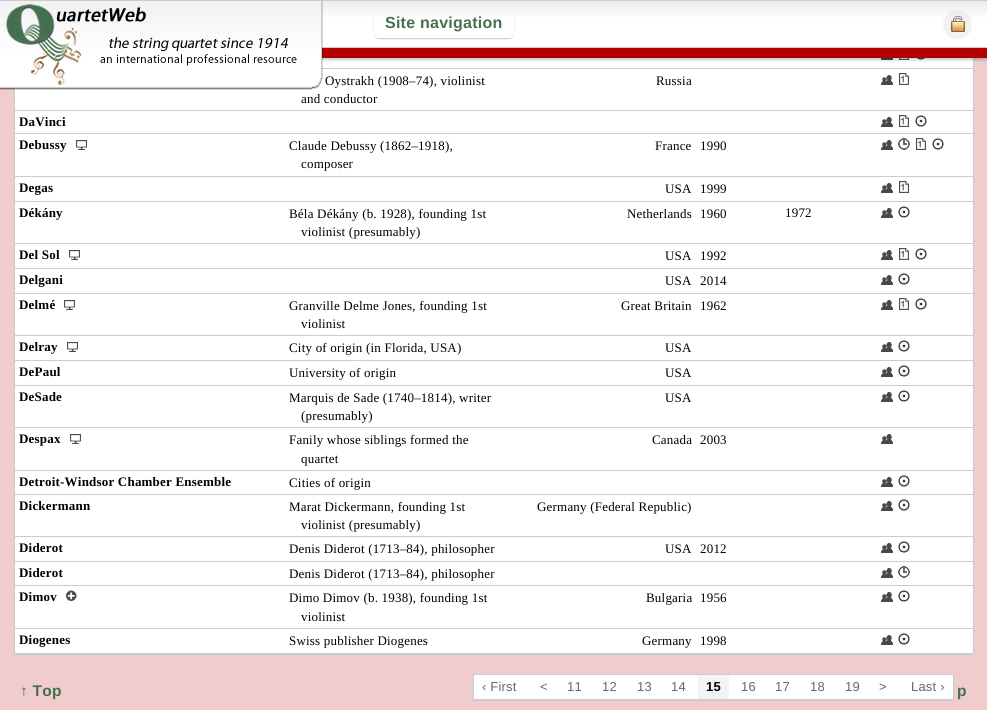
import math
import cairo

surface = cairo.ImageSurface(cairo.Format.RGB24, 987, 710)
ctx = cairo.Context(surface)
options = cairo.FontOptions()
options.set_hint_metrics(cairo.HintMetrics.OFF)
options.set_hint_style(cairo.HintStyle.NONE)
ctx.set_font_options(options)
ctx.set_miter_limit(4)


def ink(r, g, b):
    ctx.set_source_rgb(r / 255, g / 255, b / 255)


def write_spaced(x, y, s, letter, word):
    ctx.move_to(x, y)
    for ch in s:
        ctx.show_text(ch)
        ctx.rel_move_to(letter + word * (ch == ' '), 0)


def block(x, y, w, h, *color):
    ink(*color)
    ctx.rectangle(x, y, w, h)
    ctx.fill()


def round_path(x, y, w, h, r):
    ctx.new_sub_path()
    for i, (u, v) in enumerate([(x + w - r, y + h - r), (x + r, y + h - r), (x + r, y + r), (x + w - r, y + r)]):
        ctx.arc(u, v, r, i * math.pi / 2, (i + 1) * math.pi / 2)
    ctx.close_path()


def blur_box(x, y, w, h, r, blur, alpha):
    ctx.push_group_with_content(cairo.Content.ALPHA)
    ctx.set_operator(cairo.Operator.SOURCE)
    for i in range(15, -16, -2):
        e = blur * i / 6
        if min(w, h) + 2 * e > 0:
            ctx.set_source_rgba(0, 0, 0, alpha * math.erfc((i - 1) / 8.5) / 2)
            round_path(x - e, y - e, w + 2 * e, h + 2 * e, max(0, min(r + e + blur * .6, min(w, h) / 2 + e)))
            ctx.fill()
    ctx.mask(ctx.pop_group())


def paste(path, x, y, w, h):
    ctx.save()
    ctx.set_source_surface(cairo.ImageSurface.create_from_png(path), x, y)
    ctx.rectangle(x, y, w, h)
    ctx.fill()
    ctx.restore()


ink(240, 204, 204)
ctx.paint()
ink(204, 204, 204)
blur_box(14, -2, 960, 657, 0, 0.5, 1)
block(15, 58, 958, 595, 255, 255, 255)
block(973, 58, 1, 596, 204, 204, 204)
paste("pic4.png", 881, 58, 12, 2)
paste("pic5.png", 899, 58, 10, 2)
paste("pic6.png", 917, 58, 8, 2)
paste("pic1.png", 322, 0, 665, 62)
block(14, 88, 1, 566, 204, 204, 204)
block(322, 68, 652, 1, 204, 204, 204)
paste("pic2.png", 0, 0, 323, 90)
ctx.save()
ctx.set_fill_rule(cairo.FillRule.EVEN_ODD)
ctx.new_path()
ctx.move_to(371, 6)
ctx.line_to(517, 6)
ctx.line_to(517, 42)
ctx.line_to(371, 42)
ctx.close_path()
ctx.move_to(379, 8)
ctx.line_to(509, 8)
ctx.curve_to(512, 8, 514, 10, 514, 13)
ctx.line_to(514, 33)
ctx.curve_to(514, 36, 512, 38, 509, 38)
ctx.line_to(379, 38)
ctx.curve_to(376, 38, 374, 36, 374, 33)
ctx.line_to(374, 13)
ctx.curve_to(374, 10, 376, 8, 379, 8)
ctx.close_path()
ctx.clip()
ink(204, 204, 204)
blur_box(374, 9, 140, 30, 5, 0.5, 1)
ctx.restore()
ctx.select_font_face("Liberation Sans", cairo.FontSlant.NORMAL, cairo.FontWeight.BOLD)
ctx.set_font_size(16)
ink(69, 112, 80)
write_spaced(385, 28, "Site navigation", 0.25, 0)
paste("pic3.png", 943, 10, 29, 29)
block(14, 110, 960, 1, 204, 204, 204)
ctx.select_font_face("Liberation Serif")
ctx.set_font_size(13)
ink(0, 0, 0)
write_spaced(325, 85, "Oystrakh (1908–74), violinist", 0.2, 0)
write_spaced(301, 103, "and conductor", 0.2, 0)
write_spaced(656, 85, "Russia", 0.2, 0)
paste("pic7.png", 881, 75, 12, 10)
paste("pic8.png", 899, 73, 10, 12)
block(14, 133, 960, 1, 204, 204, 204)
ctx.select_font_face("Liberation Serif", cairo.FontSlant.NORMAL, cairo.FontWeight.BOLD)
ink(0, 0, 0)
write_spaced(19, 126, "DaVinci", 0.2, 0)
paste("pic7.png", 881, 117, 12, 10)
paste("pic8.png", 899, 115, 10, 12)
paste("pic9.png", 915, 115, 12, 12)
block(14, 176, 960, 1, 204, 204, 204)
ink(0, 0, 0)
write_spaced(19, 149, "Debussy", 0.2, 0)
paste("pic10.png", 76, 140, 11, 10)
ctx.select_font_face("Liberation Serif")
write_spaced(289, 150, "Claude Debussy (1862–1918),", 0.2, 0)
write_spaced(301, 168, "composer", 0.2, 0)
write_spaced(655, 150, "France", 0.2, 0)
write_spaced(700, 150, "1990", 0.2, 0)
paste("pic7.png", 881, 140, 12, 10)
paste("pic11.png", 898, 138, 12, 12)
paste("pic8.png", 916, 138, 10, 12)
paste("pic9.png", 932, 138, 12, 12)
block(14, 201, 960, 1, 204, 204, 204)
ctx.select_font_face("Liberation Serif", cairo.FontSlant.NORMAL, cairo.FontWeight.BOLD)
ink(0, 0, 0)
write_spaced(19, 192, "Degas", 0.2, 0)
ctx.select_font_face("Liberation Serif")
write_spaced(665, 193, "USA", 0.2, 0)
write_spaced(700, 193, "1999", 0.2, 0)
paste("pic7.png", 881, 183, 12, 10)
paste("pic8.png", 899, 181, 10, 12)
block(14, 243, 960, 1, 204, 204, 204)
ctx.select_font_face("Liberation Serif", cairo.FontSlant.NORMAL, cairo.FontWeight.BOLD)
ink(0, 0, 0)
write_spaced(19, 217, "Dékány", 0.2, 0)
ctx.select_font_face("Liberation Serif")
write_spaced(289, 218, "Béla Dékány (b. 1928), founding 1st", 0.2, 0)
write_spaced(301, 236, "violinist (presumably)", 0.2, 0)
write_spaced(627, 218, "Netherlands", 0.2, 0)
write_spaced(700, 218, "1960", 0.2, 0)
write_spaced(785, 217, "1972", 0.2, 0)
paste("pic7.png", 881, 208, 12, 10)
paste("pic9.png", 898, 206, 12, 12)
block(14, 268, 960, 1, 204, 204, 204)
ctx.select_font_face("Liberation Serif", cairo.FontSlant.NORMAL, cairo.FontWeight.BOLD)
ink(0, 0, 0)
write_spaced(19, 259, "Del Sol", 0.2, 0)
paste("pic10.png", 69, 250, 11, 10)
ctx.select_font_face("Liberation Serif")
write_spaced(665, 260, "USA", 0.2, 0)
write_spaced(700, 260, "1992", 0.2, 0)
paste("pic7.png", 881, 250, 12, 10)
paste("pic8.png", 899, 248, 10, 12)
paste("pic9.png", 915, 248, 12, 12)
block(14, 293, 960, 1, 204, 204, 204)
ctx.select_font_face("Liberation Serif", cairo.FontSlant.NORMAL, cairo.FontWeight.BOLD)
ink(0, 0, 0)
write_spaced(19, 284, "Delgani", 0.2, 0)
ctx.select_font_face("Liberation Serif")
write_spaced(665, 285, "USA", 0.2, 0)
write_spaced(700, 285, "2014", 0.2, 0)
paste("pic7.png", 881, 275, 12, 10)
paste("pic9.png", 898, 273, 12, 12)
block(14, 335, 960, 1, 204, 204, 204)
ctx.select_font_face("Liberation Serif", cairo.FontSlant.NORMAL, cairo.FontWeight.BOLD)
ink(0, 0, 0)
write_spaced(19, 309, "Delmé", 0.2, 0)
paste("pic10.png", 64, 300, 11, 10)
ctx.select_font_face("Liberation Serif")
write_spaced(289, 310, "Granville Delme Jones, founding 1st", 0.2, 0)
write_spaced(301, 328, "violinist", 0.2, 0)
write_spaced(621, 310, "Great Britain", 0.2, 0)
write_spaced(700, 310, "1962", 0.2, 0)
paste("pic7.png", 881, 300, 12, 10)
paste("pic8.png", 899, 298, 10, 12)
paste("pic9.png", 915, 298, 12, 12)
block(14, 360, 960, 1, 204, 204, 204)
ctx.select_font_face("Liberation Serif", cairo.FontSlant.NORMAL, cairo.FontWeight.BOLD)
ink(0, 0, 0)
write_spaced(19, 351, "Delray", 0.2, 0)
paste("pic10.png", 67, 342, 11, 10)
ctx.select_font_face("Liberation Serif")
write_spaced(289, 352, "City of origin (in Florida, USA)", 0.2, 0)
write_spaced(665, 352, "USA", 0.2, 0)
paste("pic7.png", 881, 342, 12, 10)
paste("pic9.png", 898, 340, 12, 12)
block(14, 385, 960, 1, 204, 204, 204)
ctx.select_font_face("Liberation Serif", cairo.FontSlant.NORMAL, cairo.FontWeight.BOLD)
ink(0, 0, 0)
write_spaced(19, 376, "DePaul", 0.2, 0)
ctx.select_font_face("Liberation Serif")
write_spaced(289, 377, "University of origin", 0.2, 0)
write_spaced(665, 377, "USA", 0.2, 0)
paste("pic7.png", 881, 367, 12, 10)
paste("pic9.png", 898, 365, 12, 12)
block(14, 427, 960, 1, 204, 204, 204)
ctx.select_font_face("Liberation Serif", cairo.FontSlant.NORMAL, cairo.FontWeight.BOLD)
ink(0, 0, 0)
write_spaced(19, 401, "DeSade", 0.2, 0)
ctx.select_font_face("Liberation Serif")
write_spaced(289, 402, "Marquis de Sade (1740–1814), writer", 0.2, 0)
write_spaced(301, 420, "(presumably)", 0.2, 0)
write_spaced(665, 402, "USA", 0.2, 0)
paste("pic7.png", 881, 392, 12, 10)
paste("pic9.png", 898, 390, 12, 12)
block(14, 470, 960, 1, 204, 204, 204)
ctx.select_font_face("Liberation Serif", cairo.FontSlant.NORMAL, cairo.FontWeight.BOLD)
ink(0, 0, 0)
write_spaced(19, 443, "Despax", 0.2, 0)
paste("pic10.png", 70, 434, 11, 10)
ctx.select_font_face("Liberation Serif")
write_spaced(289, 444, "Fanily whose siblings formed the", 0.2, 0)
write_spaced(301, 463, "quartet", 0.2, 0)
write_spaced(652, 444, "Canada", 0.2, 0)
write_spaced(700, 444, "2003", 0.2, 0)
paste("pic7.png", 881, 434, 12, 10)
block(14, 494, 960, 1, 204, 204, 204)
ctx.select_font_face("Liberation Serif", cairo.FontSlant.NORMAL, cairo.FontWeight.BOLD)
ink(0, 0, 0)
write_spaced(19, 486, "Detroit-Windsor Chamber Ensemble", 0.2, 0)
ctx.select_font_face("Liberation Serif")
write_spaced(289, 487, "Cities of origin", 0.2, 0)
paste("pic7.png", 881, 477, 12, 10)
paste("pic9.png", 898, 475, 12, 12)
block(14, 536, 960, 1, 204, 204, 204)
ctx.select_font_face("Liberation Serif", cairo.FontSlant.NORMAL, cairo.FontWeight.BOLD)
ink(0, 0, 0)
write_spaced(19, 510, "Dickermann", 0.2, 0)
ctx.select_font_face("Liberation Serif")
write_spaced(289, 511, "Marat Dickermann, founding 1st", 0.2, 0)
write_spaced(301, 529, "violinist (presumably)", 0.2, 0)
write_spaced(537, 511, "Germany (Federal Republic)", 0.2, 0)
paste("pic7.png", 881, 501, 12, 10)
paste("pic9.png", 898, 499, 12, 12)
block(14, 561, 960, 1, 204, 204, 204)
ctx.select_font_face("Liberation Serif", cairo.FontSlant.NORMAL, cairo.FontWeight.BOLD)
ink(0, 0, 0)
write_spaced(19, 552, "Diderot", 0.2, 0)
ctx.select_font_face("Liberation Serif")
write_spaced(289, 553, "Denis Diderot (1713–84), philosopher", 0.2, 0)
write_spaced(665, 553, "USA", 0.2, 0)
write_spaced(700, 553, "2012", 0.2, 0)
paste("pic7.png", 881, 543, 12, 10)
paste("pic9.png", 898, 541, 12, 12)
block(14, 585, 960, 1, 204, 204, 204)
ctx.select_font_face("Liberation Serif", cairo.FontSlant.NORMAL, cairo.FontWeight.BOLD)
ink(0, 0, 0)
write_spaced(19, 577, "Diderot", 0.2, 0)
ctx.select_font_face("Liberation Serif")
write_spaced(289, 578, "Denis Diderot (1713–84), philosopher", 0.2, 0)
paste("pic7.png", 881, 568, 12, 10)
paste("pic11.png", 898, 566, 12, 12)
block(14, 628, 960, 1, 204, 204, 204)
ctx.select_font_face("Liberation Serif", cairo.FontSlant.NORMAL, cairo.FontWeight.BOLD)
ink(0, 0, 0)
write_spaced(19, 601, "Dimov", 0.2, 0)
paste("pic12.png", 65, 590, 12, 12)
ctx.select_font_face("Liberation Serif")
write_spaced(289, 602, "Dimo Dimov (b. 1938), founding 1st", 0.2, 0)
write_spaced(301, 621, "violinist", 0.2, 0)
write_spaced(646, 602, "Bulgaria", 0.2, 0)
write_spaced(700, 602, "1956", 0.2, 0)
paste("pic7.png", 881, 592, 12, 10)
paste("pic9.png", 898, 590, 12, 12)
ctx.select_font_face("Liberation Serif", cairo.FontSlant.NORMAL, cairo.FontWeight.BOLD)
write_spaced(19, 644, "Diogenes", 0.2, 0)
ctx.select_font_face("Liberation Serif")
write_spaced(289, 645, "Swiss publisher Diogenes", 0.2, 0)
write_spaced(642, 645, "Germany", 0.2, 0)
write_spaced(700, 645, "1998", 0.2, 0)
paste("pic7.png", 881, 635, 12, 10)
paste("pic9.png", 898, 633, 12, 12)
ctx.select_font_face("Liberation Sans", cairo.FontSlant.NORMAL, cairo.FontWeight.BOLD)
ctx.set_font_size(15.5)
ink(69, 112, 80)
write_spaced(20, 696, "↑ Top", 0.25, 0)
ink(204, 204, 204)
blur_box(473, 675, 481, 26, 0, 0.5, 1)
ink(255, 255, 255)
ctx.rectangle(473.5, 674.5, 480, 25)
ctx.fill_preserve()
ink(204, 204, 204)
ctx.set_line_width(1)
ctx.stroke()
ctx.select_font_face("Liberation Sans")
ctx.set_font_size(13)
ink(102, 102, 102)
write_spaced(482, 691, "‹ First", 0.2, 0)
write_spaced(540, 691, "<", 0.2, 0)
write_spaced(567, 691, "11", 0.2, 0)
write_spaced(602, 691, "12", 0.2, 0)
write_spaced(637, 691, "13", 0.2, 0)
write_spaced(671, 691, "14", 0.2, 0)
block(698, 675, 31, 24, 243, 243, 243)
ctx.select_font_face("Liberation Sans", cairo.FontSlant.NORMAL, cairo.FontWeight.BOLD)
ink(0, 0, 0)
write_spaced(706, 691, "15", 0.2, 0)
ctx.select_font_face("Liberation Sans")
ink(102, 102, 102)
write_spaced(741, 691, "16", 0.2, 0)
write_spaced(775, 691, "17", 0.2, 0)
write_spaced(810, 691, "18", 0.2, 0)
write_spaced(845, 691, "19", 0.2, 0)
write_spaced(879, 691, ">", 0.2, 0)
write_spaced(911, 691, "Last ›", 0.2, 0)
ctx.select_font_face("Liberation Sans", cairo.FontSlant.NORMAL, cairo.FontWeight.BOLD)
ctx.set_font_size(15.5)
ink(69, 112, 80)
write_spaced(957, 696, "p", 0.25, 0)
surface.write_to_png("screenshot.png")
